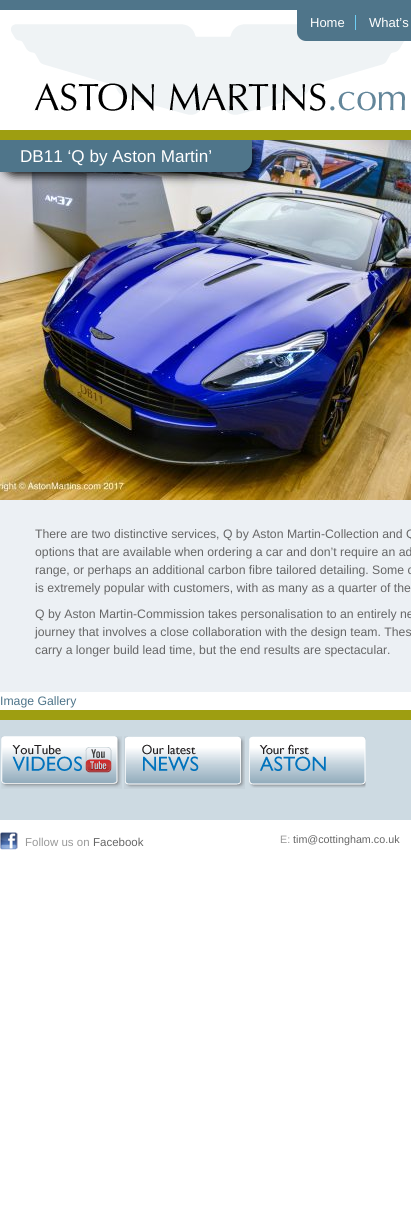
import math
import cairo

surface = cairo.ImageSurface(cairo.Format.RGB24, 411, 1216)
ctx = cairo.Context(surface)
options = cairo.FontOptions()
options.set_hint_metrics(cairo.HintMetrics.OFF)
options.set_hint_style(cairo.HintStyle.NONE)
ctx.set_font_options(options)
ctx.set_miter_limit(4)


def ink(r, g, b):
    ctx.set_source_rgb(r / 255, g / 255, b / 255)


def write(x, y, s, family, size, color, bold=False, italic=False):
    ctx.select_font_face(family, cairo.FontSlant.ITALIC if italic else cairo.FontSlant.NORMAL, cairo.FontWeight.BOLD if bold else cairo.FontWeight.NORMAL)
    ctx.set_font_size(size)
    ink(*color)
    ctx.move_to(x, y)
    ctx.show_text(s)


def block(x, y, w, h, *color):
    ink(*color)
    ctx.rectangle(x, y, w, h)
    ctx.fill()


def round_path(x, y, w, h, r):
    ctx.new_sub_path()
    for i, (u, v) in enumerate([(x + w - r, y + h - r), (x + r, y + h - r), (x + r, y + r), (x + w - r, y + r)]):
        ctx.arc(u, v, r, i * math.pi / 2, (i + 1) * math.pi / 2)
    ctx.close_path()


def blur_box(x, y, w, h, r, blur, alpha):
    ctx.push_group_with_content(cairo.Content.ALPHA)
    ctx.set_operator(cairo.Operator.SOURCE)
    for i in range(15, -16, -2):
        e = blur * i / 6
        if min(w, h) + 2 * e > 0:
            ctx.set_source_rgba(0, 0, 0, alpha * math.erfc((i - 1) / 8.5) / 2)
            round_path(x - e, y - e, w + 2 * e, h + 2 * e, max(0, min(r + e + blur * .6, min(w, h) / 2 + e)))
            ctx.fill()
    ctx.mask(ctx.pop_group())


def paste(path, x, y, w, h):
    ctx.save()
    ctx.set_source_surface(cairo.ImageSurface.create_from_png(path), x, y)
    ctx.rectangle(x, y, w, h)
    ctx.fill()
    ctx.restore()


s1 = dict(family="Liberation Sans", size=13, color=(255, 255, 255))
s2 = dict(family="Liberation Sans", size=17.1, color=(255, 255, 255))
s3 = dict(family="Liberation Sans", size=12.25, color=(102, 102, 102))
s4 = dict(family="Liberation Sans", size=12.25, color=(79, 117, 138))
s5 = dict(family="Liberation Sans", size=11.5, color=(153, 153, 153))
s6 = dict(family="Liberation Sans", size=11.5, color=(102, 102, 102))
s7 = dict(family="Liberation Sans", size=10.75, color=(153, 153, 153))
s8 = dict(family="Liberation Sans", size=10.75, color=(102, 102, 102))

ink(255, 255, 255)
ctx.paint()
block(0, 0, 411, 10, 79, 117, 138)
paste("pic1.png", 11, 24, 400, 91)
ctx.new_path()
ctx.move_to(297, 10)
ctx.line_to(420, 10)
ctx.line_to(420, 32)
ctx.curve_to(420, 37, 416, 41, 411, 41)
ctx.line_to(306, 41)
ctx.curve_to(301, 41, 297, 37, 297, 32)
ctx.close_path()
ctx.fill()
write(310, 27, "Home", **s1)
block(355, 15, 1, 15, 109, 207, 246)
write(369, 27, "What’s", **s1)
block(0, 130, 411, 10, 158, 158, 17)
block(0, 710, 411, 10, 158, 158, 17)
paste("pic2.png", 0, 140, 411, 360)
ctx.save()
ctx.rectangle(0, 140, 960, 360)
ctx.clip()
ink(0, 0, 0)
blur_box(3, 143, 252, 32, 12, 5, 1)
ctx.restore()
ink(79, 117, 138)
ctx.new_path()
ctx.move_to(0, 140)
ctx.line_to(252, 140)
ctx.line_to(252, 160)
ctx.curve_to(252, 166.5, 246.5, 172, 240, 172)
ctx.line_to(0, 172)
ctx.close_path()
ctx.fill()
write(20, 162, "DB11 ‘Q by Aston Martin’", **s2)
block(0, 500, 411, 192, 236, 240, 244)
write(35, 538, "There are two distinctive services, Q by Aston Martin-Collection and Q", **s3)
write(35, 556, "options that are available when ordering a car and don’t require an ad", **s3)
write(35, 574, "range, or perhaps an additional carbon fibre tailored detailing. Some c", **s3)
write(35, 592, "is extremely popular with customers, with as many as a quarter of the", **s3)
write(35, 618, "Q by Aston Martin-Commission takes personalisation to an entirely ne", **s3)
write(35, 636, "journey that involves a close collaboration with the design team. Thes", **s3)
write(35, 654, "carry a longer build lead time, but the end results are spectacular.", **s3)
write(0, 705, "Image Gallery", **s4)
block(0, 720, 411, 100, 205, 218, 226)
paste("pic3.png", 1, 736, 120, 53)
paste("pic4.png", 121, 736, 124, 53)
paste("pic5.png", 249, 736, 117, 52)
paste("pic6.png", 0, 832, 18, 18)
write(25, 846, "Follow us on", **s5)
write(93, 846, "Facebook", **s6)
write(280, 843, "E:", **s7)
write(293, 843, "tim@cottingham.co.uk", **s8)
surface.write_to_png("screenshot.png")
